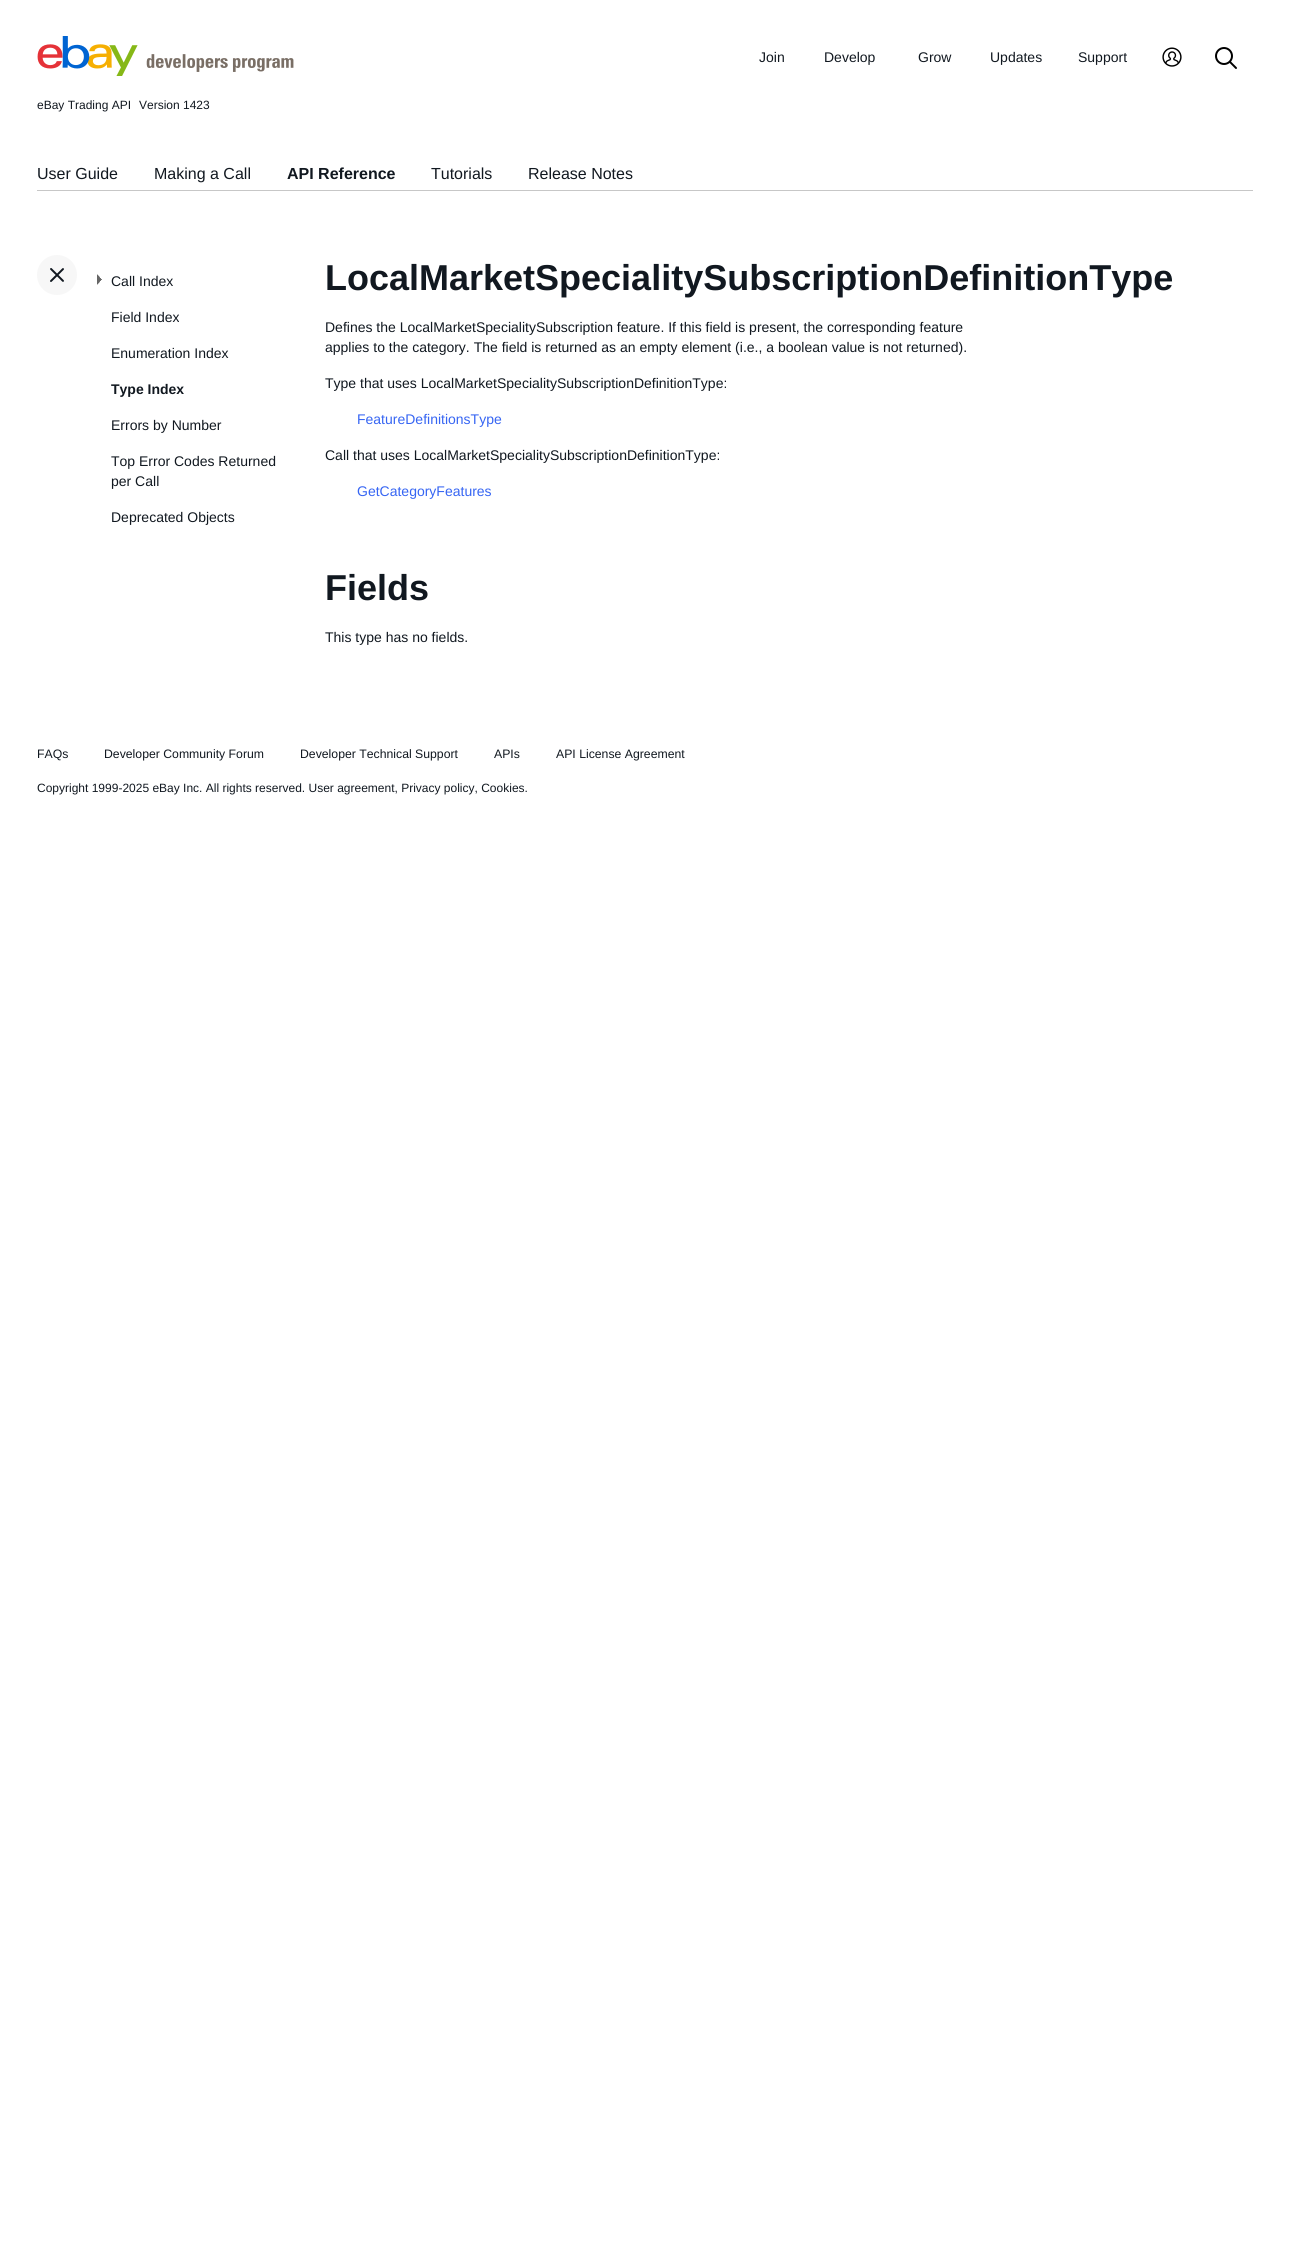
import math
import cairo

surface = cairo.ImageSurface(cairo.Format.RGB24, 1290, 2256)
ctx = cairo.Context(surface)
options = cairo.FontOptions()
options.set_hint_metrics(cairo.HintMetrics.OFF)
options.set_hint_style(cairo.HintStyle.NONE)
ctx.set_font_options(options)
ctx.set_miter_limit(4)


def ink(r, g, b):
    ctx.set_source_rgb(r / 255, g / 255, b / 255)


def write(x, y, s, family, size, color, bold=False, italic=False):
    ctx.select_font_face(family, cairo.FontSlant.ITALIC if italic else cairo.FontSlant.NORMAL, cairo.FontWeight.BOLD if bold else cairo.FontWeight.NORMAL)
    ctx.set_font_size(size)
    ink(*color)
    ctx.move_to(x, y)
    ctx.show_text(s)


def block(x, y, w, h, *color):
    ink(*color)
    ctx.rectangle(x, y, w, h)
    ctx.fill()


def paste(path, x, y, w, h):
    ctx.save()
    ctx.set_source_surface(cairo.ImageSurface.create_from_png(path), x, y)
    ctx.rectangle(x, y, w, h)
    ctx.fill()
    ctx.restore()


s1 = dict(family="Liberation Sans", size=14, color=(17, 24, 32))
s2 = dict(family="Liberation Sans", size=12, color=(17, 24, 32))
s3 = dict(family="Liberation Sans", size=16, color=(17, 24, 32))
s4 = dict(family="Liberation Sans", size=16, color=(17, 24, 32), bold=True)
s5 = dict(family="Liberation Sans", size=14, color=(17, 24, 32), bold=True)
s6 = dict(family="Liberation Sans", size=36, color=(17, 24, 32), bold=True)
s7 = dict(family="Liberation Sans", size=14, color=(54, 101, 243))
s8 = dict(family="Liberation Sans", size=12.25, color=(17, 24, 32))

ink(255, 255, 255)
ctx.paint()
paste("pic1.png", 37, 36, 257, 40)
write(759, 62, "Join", **s1)
write(824, 62, "Develop", **s1)
write(918, 62, "Grow", **s1)
write(990, 62, "Updates", **s1)
write(1078, 62, "Support", **s1)
paste("pic2.png", 1162, 47, 20, 20)
paste("pic3.png", 1215, 47, 22, 22)
write(37, 109, "eBay Trading API", **s2)
write(139, 109, "Version 1423", **s2)
block(37, 190, 1216, 1, 199, 199, 199)
write(37, 179, "User Guide", **s3)
write(154, 179, "Making a Call", **s3)
write(287, 179, "API Reference", **s4)
write(431, 179, "Tutorials", **s3)
write(528, 179, "Release Notes", **s3)
ink(247, 247, 247)
ctx.new_path()
ctx.arc(57, 275, 20, 0, 2 * math.pi)
ctx.fill()
paste("pic4.png", 50, 268, 14, 14)
paste("pic5.png", 97, 274, 5, 11)
write(111, 286, "Call Index", **s1)
write(111, 322, "Field Index", **s1)
write(111, 358, "Enumeration Index", **s1)
write(111, 394, "Type Index", **s5)
write(111, 430, "Errors by Number", **s1)
write(111, 466, "Top Error Codes Returned", **s1)
write(111, 486, "per Call", **s1)
write(111, 522, "Deprecated Objects", **s1)
write(325, 290, "LocalMarketSpecialitySubscriptionDefinitionType", **s6)
write(325, 332, "Defines the LocalMarketSpecialitySubscription feature. If this field is present, the corresponding feature", **s1)
write(325, 352, "applies to the category. The field is returned as an empty element (i.e., a boolean value is not returned).", **s1)
write(325, 388, "Type that uses LocalMarketSpecialitySubscriptionDefinitionType:", **s1)
write(357, 424, "FeatureDefinitionsType", **s7)
write(325, 460, "Call that uses LocalMarketSpecialitySubscriptionDefinitionType:", **s1)
write(357, 496, "GetCategoryFeatures", **s7)
write(325, 600, "Fields", **s6)
write(325, 642, "This type has no fields.", **s1)
write(37, 758, "FAQs", **s8)
write(104, 758, "Developer Community Forum", **s8)
write(300, 758, "Developer Technical Support", **s8)
write(494, 758, "APIs", **s8)
write(556, 758, "API License Agreement", **s8)
write(37, 792, "Copyright 1999-2025 eBay Inc. All rights reserved. User agreement, Privacy policy, Cookies.", **s2)
surface.write_to_png("screenshot.png")
